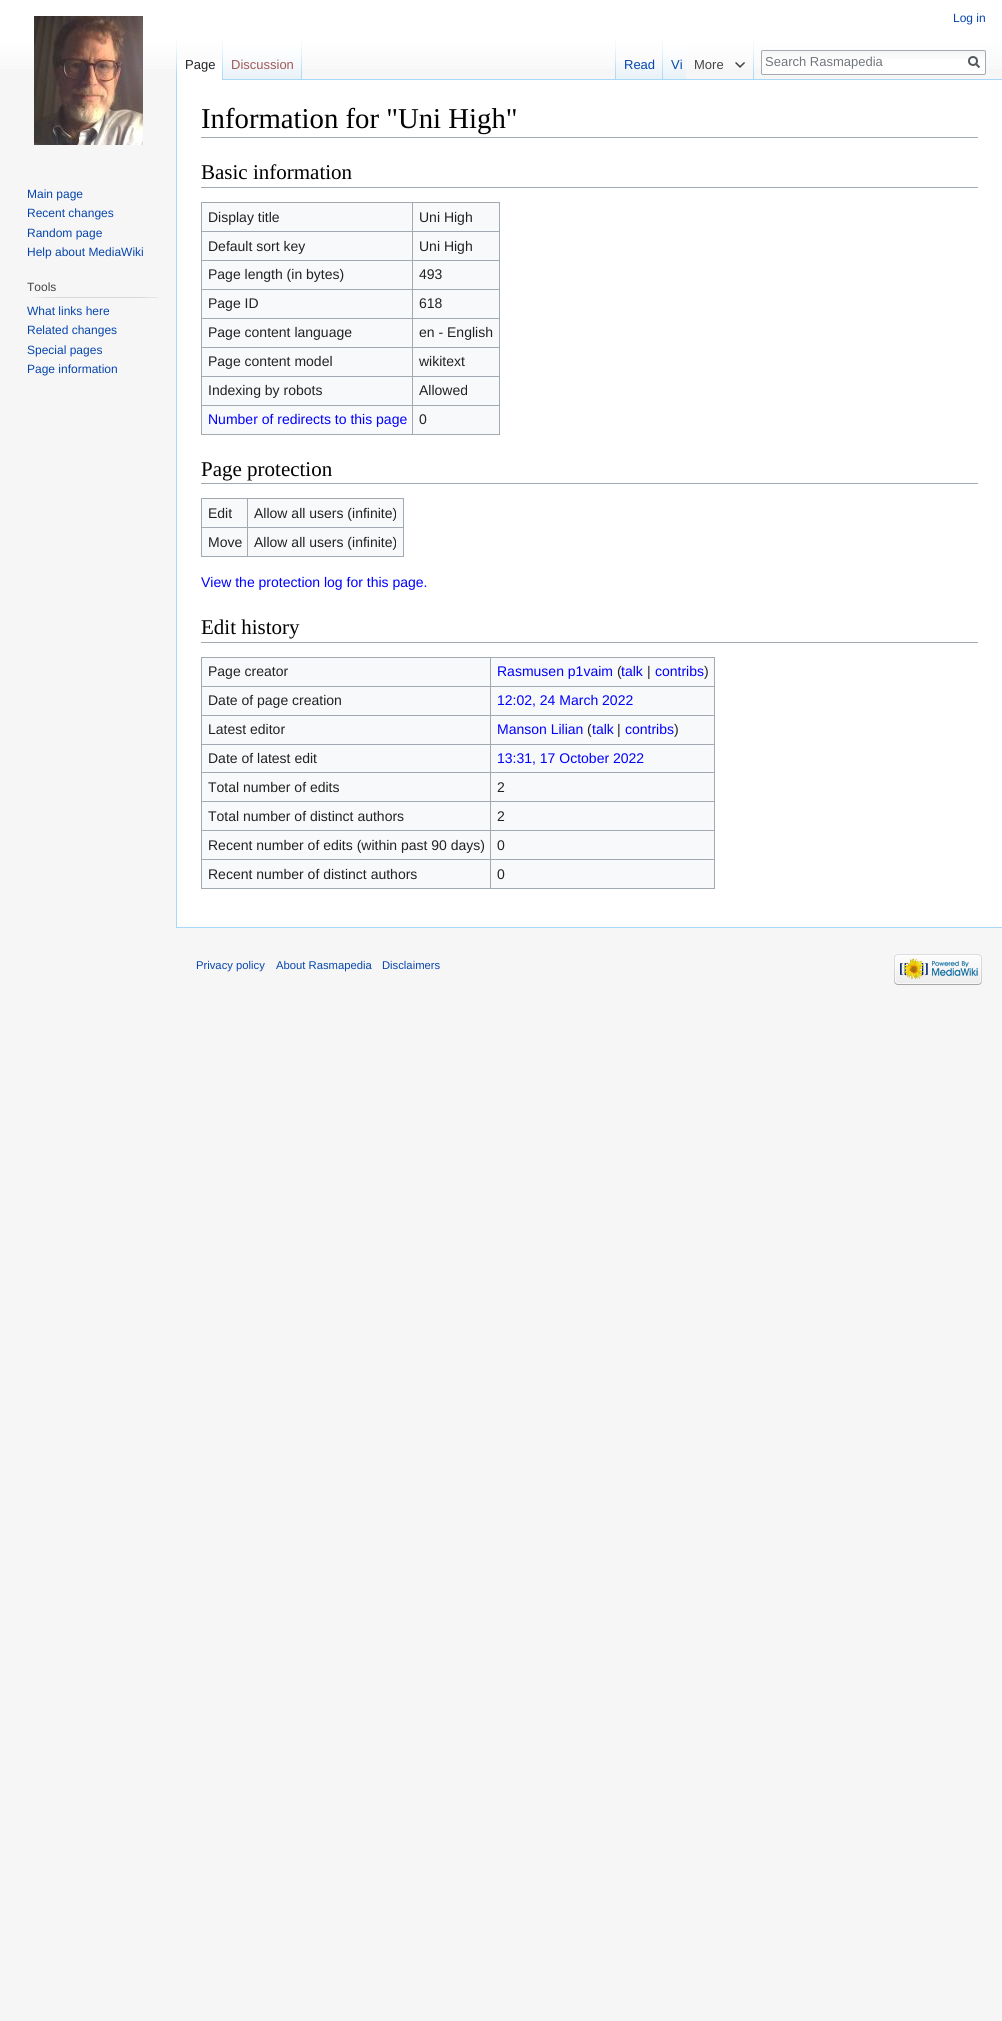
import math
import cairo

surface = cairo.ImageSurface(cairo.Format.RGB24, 1002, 2021)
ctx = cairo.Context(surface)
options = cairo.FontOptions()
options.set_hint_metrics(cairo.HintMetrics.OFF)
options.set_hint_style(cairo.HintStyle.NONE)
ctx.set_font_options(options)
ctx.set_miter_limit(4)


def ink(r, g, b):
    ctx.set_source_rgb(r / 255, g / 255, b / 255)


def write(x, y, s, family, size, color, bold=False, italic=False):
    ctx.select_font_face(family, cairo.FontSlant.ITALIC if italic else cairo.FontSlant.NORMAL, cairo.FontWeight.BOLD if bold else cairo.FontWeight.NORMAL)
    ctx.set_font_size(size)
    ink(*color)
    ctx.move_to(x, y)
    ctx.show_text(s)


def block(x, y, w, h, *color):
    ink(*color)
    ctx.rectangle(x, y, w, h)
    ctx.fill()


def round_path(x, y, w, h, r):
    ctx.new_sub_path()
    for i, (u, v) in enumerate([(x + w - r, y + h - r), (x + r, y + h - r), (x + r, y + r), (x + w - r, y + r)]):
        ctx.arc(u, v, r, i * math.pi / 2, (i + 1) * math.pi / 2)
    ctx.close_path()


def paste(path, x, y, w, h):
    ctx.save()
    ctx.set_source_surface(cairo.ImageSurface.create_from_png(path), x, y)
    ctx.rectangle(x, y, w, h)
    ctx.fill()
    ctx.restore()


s1 = dict(family="Liberation Sans", size=12, color=(6, 69, 173))
s2 = dict(family="Liberation Sans", size=13, color=(34, 34, 34))
s3 = dict(family="Liberation Sans", size=13, color=(165, 88, 88))
s4 = dict(family="Liberation Sans", size=13, color=(6, 69, 173))
s5 = dict(family="Liberation Sans", size=13, color=(68, 68, 68))
s6 = dict(family="Liberation Sans", size=13, color=(114, 119, 125))
s7 = dict(family="Liberation Sans", size=12, color=(68, 68, 68))
s8 = dict(family="Liberation Serif", size=28.75, color=(0, 0, 0))
s9 = dict(family="Liberation Serif", size=21, color=(0, 0, 0))
s10 = dict(family="Liberation Sans", size=14, color=(34, 34, 34))
s11 = dict(family="Liberation Sans", size=14, color=(0, 0, 255))
s12 = dict(family="Liberation Sans", size=11.25, color=(6, 69, 173))

ink(246, 246, 246)
ctx.paint()
gradient = cairo.LinearGradient(501, 0, 501, 80)
gradient.add_color_stop_rgba(0.5, 1, 1, 1, 1)
gradient.add_color_stop_rgba(1, 0.965, 0.965, 0.965, 1)
ctx.set_source(gradient)
ctx.rectangle(0, 0, 1002, 69)
ctx.fill()
write(953, 22, "Log in", **s1)
paste("pic1.png", 176, 40, 1, 39)
block(177, 60, 45, 20, 255, 255, 255)
paste("pic2.png", 222, 40, 1, 40)
write(185, 69, "Page", **s2)
paste("pic3.png", 223, 40, 78, 39)
paste("pic1.png", 301, 40, 1, 39)
write(231, 69, "Discussion", **s3)
paste("pic1.png", 615, 40, 1, 39)
paste("pic4.png", 616, 62, 46, 17)
paste("pic1.png", 662, 40, 1, 39)
write(624, 69, "Read", **s4)
paste("pic5.png", 663, 40, 23, 39)
write(671, 69, "Vi", **s4)
paste("pic1.png", 753, 40, 1, 39)
write(694, 69, "More", **s5)
paste("pic6.png", 735, 62, 10, 6)
ink(255, 255, 255)
round_path(761, 50, 225, 25, 2)
ctx.fill()
paste("pic7.png", 761, 51, 225, 8)
round_path(761.5, 50.5, 224, 24, 1.5)
ink(162, 169, 177)
ctx.set_line_width(1)
ctx.stroke()
write(765, 66, "Search Rasmapedia", **s6)
ctx.new_path()
ctx.move_to(979.5, 67.5)
ctx.line_to(975.5, 63.5)
ink(84, 89, 93)
ctx.set_line_width(2)
ctx.stroke()
ctx.arc(973, 61, 4, 0, 2 * math.pi)
ctx.stroke()
paste("pic8.png", 34, 16, 109, 129)
write(27, 198, "Main page", **s1)
write(27, 217, "Recent changes", **s1)
write(27, 237, "Random page", **s1)
write(27, 256, "Help about MediaWiki", **s1)
write(27, 291, "Tools", **s7)
paste("pic9.png", 30, 297, 128, 1)
write(27, 315, "What links here", **s1)
write(27, 334, "Related changes", **s1)
write(27, 354, "Special pages", **s1)
write(27, 373, "Page information", **s1)
block(177, 80, 825, 847, 255, 255, 255)
block(223, 79, 779, 1, 167, 215, 249)
block(176, 927, 826, 1, 167, 215, 249)
block(176, 79, 1, 849, 167, 215, 249)
block(201, 137, 777, 1, 162, 169, 177)
write(201, 128, "Information for \"Uni High\"", **s8)
block(201, 187, 777, 1, 162, 169, 177)
write(201, 179, "Basic information", **s9)
block(202, 203, 297, 231, 248, 249, 250)
block(201, 202, 299, 1, 162, 169, 177)
block(499, 202, 1, 233, 162, 169, 177)
block(201, 434, 299, 1, 162, 169, 177)
block(201, 202, 1, 233, 162, 169, 177)
write(208, 222, "Display title", **s10)
block(412, 231, 88, 1, 162, 169, 177)
block(412, 260, 88, 1, 162, 169, 177)
block(412, 289, 88, 1, 162, 169, 177)
block(412, 318, 88, 1, 162, 169, 177)
block(412, 347, 88, 1, 162, 169, 177)
block(412, 376, 88, 1, 162, 169, 177)
block(412, 405, 88, 1, 162, 169, 177)
block(412, 405, 1, 30, 162, 169, 177)
block(201, 405, 212, 1, 162, 169, 177)
block(412, 376, 1, 30, 162, 169, 177)
block(201, 376, 212, 1, 162, 169, 177)
block(412, 347, 1, 30, 162, 169, 177)
block(201, 347, 212, 1, 162, 169, 177)
block(412, 318, 1, 30, 162, 169, 177)
block(201, 318, 212, 1, 162, 169, 177)
block(412, 289, 1, 30, 162, 169, 177)
block(201, 289, 212, 1, 162, 169, 177)
block(412, 260, 1, 30, 162, 169, 177)
block(201, 260, 212, 1, 162, 169, 177)
block(412, 231, 1, 30, 162, 169, 177)
block(201, 231, 212, 1, 162, 169, 177)
block(412, 202, 1, 30, 162, 169, 177)
write(419, 222, "Uni High", **s10)
write(208, 251, "Default sort key", **s10)
write(419, 251, "Uni High", **s10)
write(208, 279, "Page length (in bytes)", **s10)
write(419, 279, "493", **s10)
write(208, 308, "Page ID", **s10)
write(419, 308, "618", **s10)
write(208, 337, "Page content language", **s10)
write(419, 337, "en - English", **s10)
write(208, 366, "Page content model", **s10)
write(419, 366, "wikitext", **s10)
write(208, 395, "Indexing by robots", **s10)
write(419, 395, "Allowed", **s10)
write(208, 424, "Number of redirects to this page", **s11)
write(419, 424, "0", **s10)
block(201, 483, 777, 1, 162, 169, 177)
write(201, 476, "Page protection", **s9)
block(202, 499, 201, 57, 248, 249, 250)
block(201, 498, 203, 1, 162, 169, 177)
block(403, 498, 1, 59, 162, 169, 177)
block(201, 556, 203, 1, 162, 169, 177)
block(201, 498, 1, 59, 162, 169, 177)
write(208, 518, "Edit", **s10)
block(247, 527, 157, 1, 162, 169, 177)
block(247, 527, 1, 30, 162, 169, 177)
block(201, 527, 47, 1, 162, 169, 177)
block(247, 498, 1, 30, 162, 169, 177)
write(254, 518, "Allow all users (infinite)", **s10)
write(208, 547, "Move", **s10)
write(254, 547, "Allow all users (infinite)", **s10)
write(201, 587, "View the protection log for this page.", **s11)
block(201, 642, 777, 1, 162, 169, 177)
write(201, 634, "Edit history", **s9)
block(202, 658, 512, 230, 248, 249, 250)
block(201, 657, 514, 1, 162, 169, 177)
block(714, 657, 1, 232, 162, 169, 177)
block(201, 888, 514, 1, 162, 169, 177)
block(201, 657, 1, 232, 162, 169, 177)
write(208, 676, "Page creator", **s10)
block(490, 686, 225, 1, 162, 169, 177)
block(490, 715, 225, 1, 162, 169, 177)
block(490, 744, 225, 1, 162, 169, 177)
block(490, 772, 225, 1, 162, 169, 177)
block(490, 801, 225, 1, 162, 169, 177)
block(490, 830, 225, 1, 162, 169, 177)
block(490, 859, 225, 1, 162, 169, 177)
block(490, 859, 1, 30, 162, 169, 177)
block(201, 859, 290, 1, 162, 169, 177)
block(490, 830, 1, 30, 162, 169, 177)
block(201, 830, 290, 1, 162, 169, 177)
block(490, 801, 1, 30, 162, 169, 177)
block(201, 801, 290, 1, 162, 169, 177)
block(490, 772, 1, 30, 162, 169, 177)
block(201, 772, 290, 1, 162, 169, 177)
block(490, 744, 1, 29, 162, 169, 177)
block(201, 744, 290, 1, 162, 169, 177)
block(490, 715, 1, 30, 162, 169, 177)
block(201, 715, 290, 1, 162, 169, 177)
block(490, 686, 1, 30, 162, 169, 177)
block(201, 686, 290, 1, 162, 169, 177)
block(490, 657, 1, 30, 162, 169, 177)
write(497, 676, "Rasmusen p1vaim", **s11)
write(617, 676, "(", **s10)
write(621, 676, "talk", **s11)
write(647, 676, "|", **s10)
write(655, 676, "contribs", **s11)
write(704, 676, ")", **s10)
write(208, 705, "Date of page creation", **s10)
write(497, 705, "12:02, 24 March 2022", **s11)
write(208, 734, "Latest editor", **s10)
write(497, 734, "Manson Lilian", **s11)
write(587, 734, "(", **s10)
write(592, 734, "talk", **s11)
write(617, 734, "|", **s10)
write(625, 734, "contribs", **s11)
write(674, 734, ")", **s10)
write(208, 763, "Date of latest edit", **s10)
write(497, 763, "13:31, 17 October 2022", **s11)
write(208, 792, "Total number of edits", **s10)
write(497, 792, "2", **s10)
write(208, 821, "Total number of distinct authors", **s10)
write(497, 821, "2", **s10)
write(208, 850, "Recent number of edits (within past 90 days)", **s10)
write(497, 850, "0", **s10)
write(208, 879, "Recent number of distinct authors", **s10)
write(497, 879, "0", **s10)
write(196, 969, "Privacy policy", **s12)
write(276, 969, "About Rasmapedia", **s12)
write(382, 969, "Disclaimers", **s12)
paste("pic10.png", 894, 954, 88, 31)
surface.write_to_png("screenshot.png")
